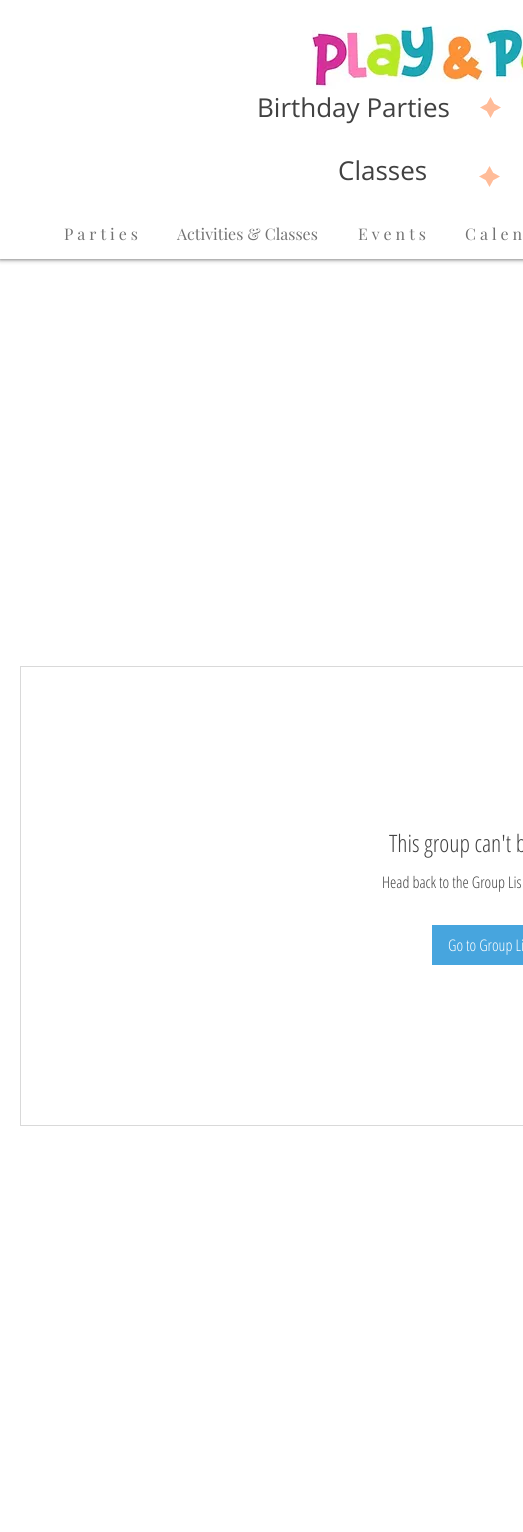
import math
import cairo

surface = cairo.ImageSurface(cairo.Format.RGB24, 523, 1532)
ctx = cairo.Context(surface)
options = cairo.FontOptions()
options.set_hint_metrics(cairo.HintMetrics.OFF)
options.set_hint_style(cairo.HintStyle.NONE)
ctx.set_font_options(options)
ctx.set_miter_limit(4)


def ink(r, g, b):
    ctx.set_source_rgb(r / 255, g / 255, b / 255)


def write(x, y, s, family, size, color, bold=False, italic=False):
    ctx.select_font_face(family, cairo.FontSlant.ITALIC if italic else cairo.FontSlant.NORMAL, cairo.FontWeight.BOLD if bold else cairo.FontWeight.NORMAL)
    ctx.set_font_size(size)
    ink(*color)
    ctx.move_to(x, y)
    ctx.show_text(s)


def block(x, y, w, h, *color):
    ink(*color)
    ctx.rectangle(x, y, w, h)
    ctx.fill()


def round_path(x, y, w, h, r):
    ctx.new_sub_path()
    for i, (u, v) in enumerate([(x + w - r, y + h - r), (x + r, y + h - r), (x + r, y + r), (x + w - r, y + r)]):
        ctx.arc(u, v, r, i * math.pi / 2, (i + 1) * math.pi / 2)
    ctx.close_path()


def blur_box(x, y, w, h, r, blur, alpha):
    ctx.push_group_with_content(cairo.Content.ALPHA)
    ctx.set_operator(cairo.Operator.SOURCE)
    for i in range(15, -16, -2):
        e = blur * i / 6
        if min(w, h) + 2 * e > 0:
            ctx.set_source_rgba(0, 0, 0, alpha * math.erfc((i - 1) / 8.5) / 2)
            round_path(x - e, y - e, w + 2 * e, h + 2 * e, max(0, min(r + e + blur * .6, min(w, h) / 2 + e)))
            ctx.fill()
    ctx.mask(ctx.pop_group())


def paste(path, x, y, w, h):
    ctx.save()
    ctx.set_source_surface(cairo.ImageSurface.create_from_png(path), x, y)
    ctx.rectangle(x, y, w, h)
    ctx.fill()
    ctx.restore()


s1 = dict(family="Open Sans", size=26, color=(65, 65, 65))
s2 = dict(family="Playfair Display", size=16, color=(114, 114, 114))
s3 = dict(family="Open Sans Condensed Light", size=24, color=(65, 65, 65))
s4 = dict(family="Open Sans Condensed Light", size=16, color=(65, 65, 65))
s5 = dict(family="Open Sans Condensed Light", size=16, color=(255, 255, 255))

ink(255, 255, 255)
ctx.paint()
ink(0, 0, 0)
blur_box(0, 0, 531, 259, 0, 2.5, 0.7)
block(0, 0, 523, 259, 255, 255, 255)
paste("pic1.png", 311, 25, 212, 64)
write(257, 117, "Birthday Parties", **s1)
paste("pic2.png", 480, 97, 21, 21)
write(338, 180, "Classes", **s1)
paste("pic2.png", 479, 166, 21, 21)
write(64, 240, "P a r t i e s", **s2)
write(177, 240, "Activities & Classes", **s2)
write(358, 240, "E v e n t s", **s2)
write(465, 240, "C a l e n", **s2)
ctx.rectangle(20.5, 666.5, 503, 459)
ink(217, 217, 217)
ctx.set_line_width(1)
ctx.stroke()
write(389, 852, "This group can't b", **s3)
write(382, 888, "Head back to the Group Lis", **s4)
block(432, 925, 91, 40, 71, 165, 222)
write(448, 951, "Go to Group Li", **s5)
surface.write_to_png("screenshot.png")
